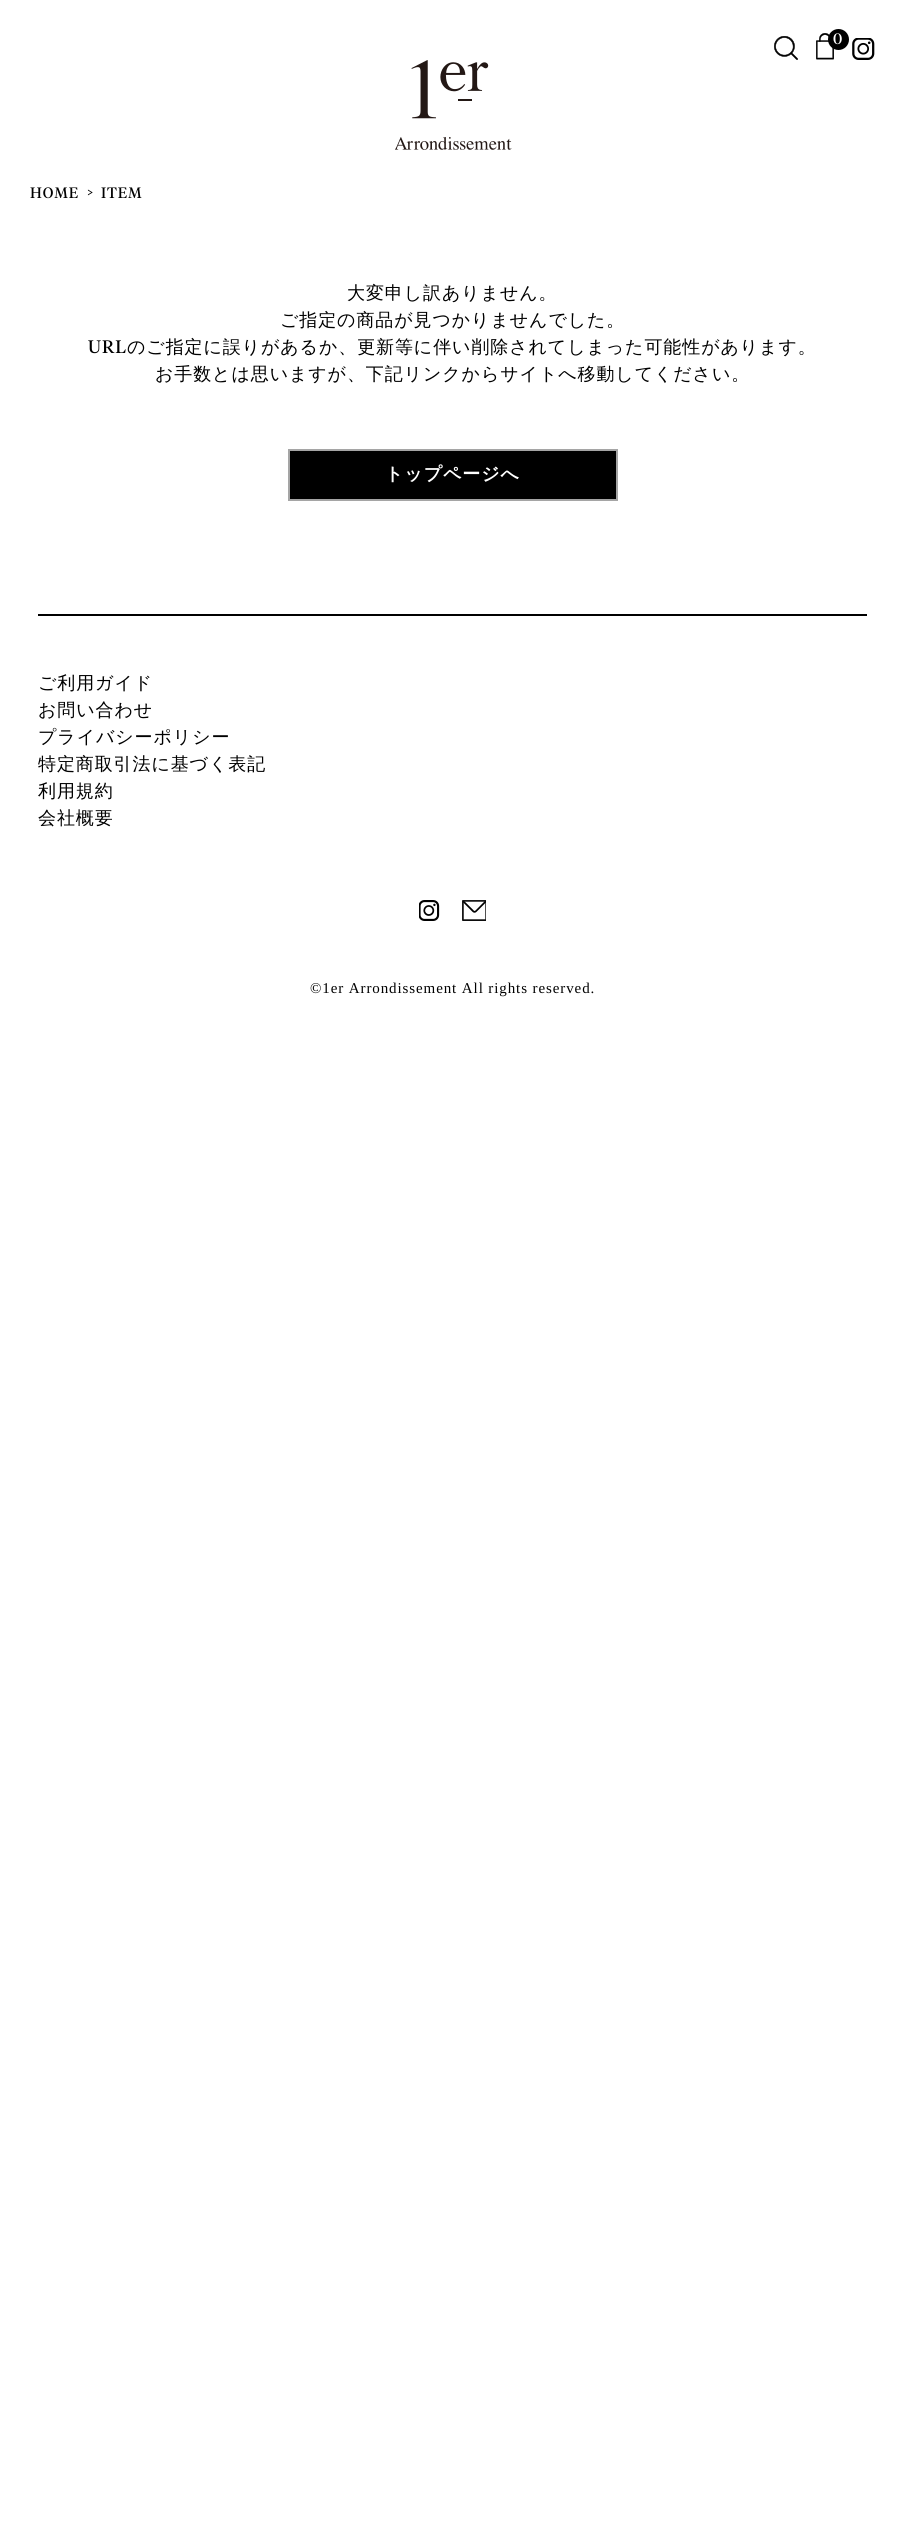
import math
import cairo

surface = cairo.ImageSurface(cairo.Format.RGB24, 904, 2535)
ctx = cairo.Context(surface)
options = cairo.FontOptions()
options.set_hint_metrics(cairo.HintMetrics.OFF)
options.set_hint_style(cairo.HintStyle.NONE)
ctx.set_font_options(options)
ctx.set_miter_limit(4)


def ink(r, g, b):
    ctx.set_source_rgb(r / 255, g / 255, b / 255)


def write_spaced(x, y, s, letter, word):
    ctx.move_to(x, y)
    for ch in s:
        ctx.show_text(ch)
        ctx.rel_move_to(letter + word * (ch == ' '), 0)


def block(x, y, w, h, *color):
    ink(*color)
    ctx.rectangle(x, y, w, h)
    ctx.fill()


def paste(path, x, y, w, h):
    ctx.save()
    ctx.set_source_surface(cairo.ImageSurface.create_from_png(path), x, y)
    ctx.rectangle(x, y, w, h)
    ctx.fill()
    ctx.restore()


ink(255, 255, 255)
ctx.paint()
paste("pic1.png", 774, 36, 24, 24)
paste("pic2.png", 816, 33, 18, 27)
ink(0, 0, 0)
ctx.arc(838.5, 39.5, 10.5, 0, 2 * math.pi)
ctx.fill()
ctx.select_font_face("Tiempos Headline")
ctx.set_font_size(15)
ink(255, 255, 255)
write_spaced(833, 44, "0", 0.9, 0)
paste("pic3.png", 852, 38, 23, 22)
paste("pic4.png", 395, 60, 117, 90)
ink(0, 0, 0)
write_spaced(30, 198, "HOME", 0.9, 0)
write_spaced(87, 198, ">", 0.9, 0)
write_spaced(101, 198, "ITEM", 0.9, 0)
ctx.select_font_face("WenQuanYi Zen Hei Medium")
ctx.set_font_size(18)
write_spaced(347, 299, "大変申し訳ありません。", 0.9, 0)
write_spaced(280, 326, "ご指定の商品が見つかりませんでした。", 0.9, 0)
ctx.select_font_face("Tiempos Headline")
write_spaced(88, 353, "URL", 0.9, 0)
ctx.select_font_face("WenQuanYi Zen Hei Medium")
write_spaced(127, 353, "のご指定に誤りがあるか、更新等に伴い削除されてしまった可能性があります。", 0.9, 0)
write_spaced(155, 380, "お手数とは思いますが、下記リンクからサイトへ移動してください。", 0.9, 0)
ctx.rectangle(289, 450, 328, 50)
ctx.fill_preserve()
ink(165, 165, 165)
ctx.stroke()
ctx.select_font_face("WenQuanYi Zen Hei", cairo.FontSlant.NORMAL, cairo.FontWeight.BOLD)
ink(255, 255, 255)
write_spaced(385, 480, "トップページへ", 0.9, 0)
block(38, 614, 829, 2, 0, 0, 0)
ctx.select_font_face("WenQuanYi Zen Hei Medium")
write_spaced(38, 689, "ご利用ガイド", 0.9, 0)
write_spaced(38, 716, "お問い合わせ", 0.9, 0)
write_spaced(38, 743, "プライバシーポリシー", 0.9, 0)
write_spaced(38, 770, "特定商取引法に基づく表記", 0.9, 0)
write_spaced(38, 797, "利用規約", 0.9, 0)
write_spaced(38, 824, "会社概要", 0.9, 0)
paste("pic5.png", 419, 900, 21, 21)
paste("pic6.png", 462, 900, 24, 21)
ctx.select_font_face("Liberation Serif")
ctx.set_font_size(15)
write_spaced(310, 993, "©1er Arrondissement All rights reserved.", 0.9, 0)
surface.write_to_png("screenshot.png")
